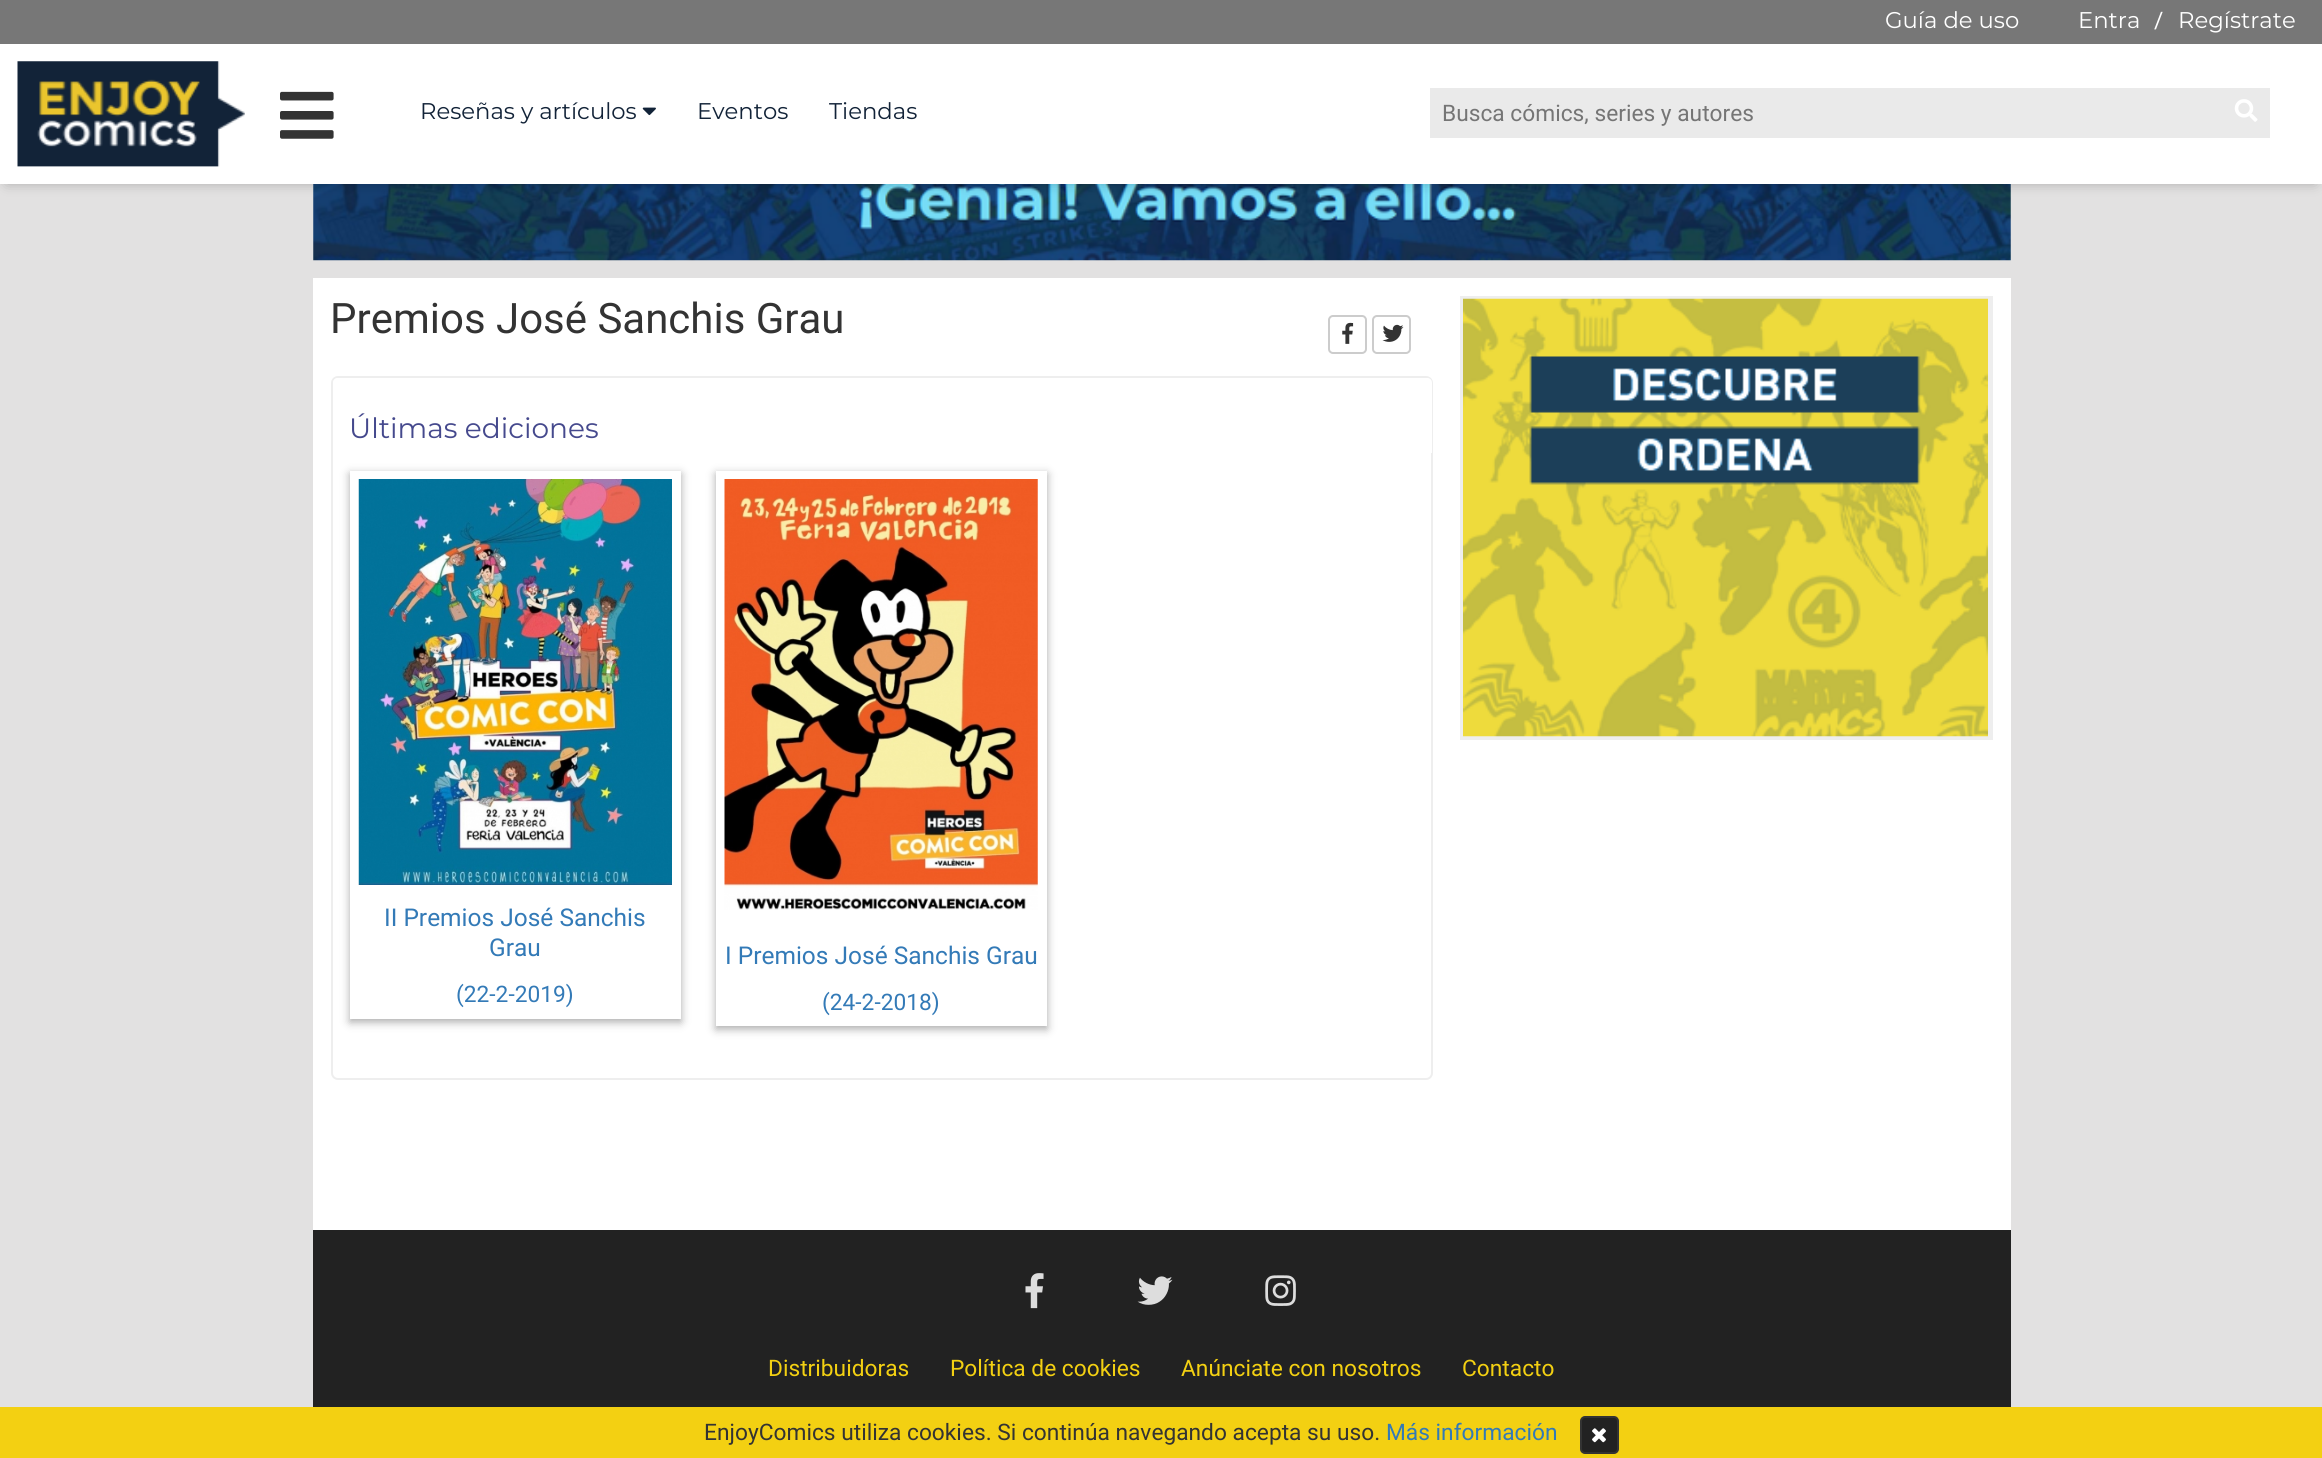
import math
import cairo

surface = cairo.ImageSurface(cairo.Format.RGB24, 2322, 1458)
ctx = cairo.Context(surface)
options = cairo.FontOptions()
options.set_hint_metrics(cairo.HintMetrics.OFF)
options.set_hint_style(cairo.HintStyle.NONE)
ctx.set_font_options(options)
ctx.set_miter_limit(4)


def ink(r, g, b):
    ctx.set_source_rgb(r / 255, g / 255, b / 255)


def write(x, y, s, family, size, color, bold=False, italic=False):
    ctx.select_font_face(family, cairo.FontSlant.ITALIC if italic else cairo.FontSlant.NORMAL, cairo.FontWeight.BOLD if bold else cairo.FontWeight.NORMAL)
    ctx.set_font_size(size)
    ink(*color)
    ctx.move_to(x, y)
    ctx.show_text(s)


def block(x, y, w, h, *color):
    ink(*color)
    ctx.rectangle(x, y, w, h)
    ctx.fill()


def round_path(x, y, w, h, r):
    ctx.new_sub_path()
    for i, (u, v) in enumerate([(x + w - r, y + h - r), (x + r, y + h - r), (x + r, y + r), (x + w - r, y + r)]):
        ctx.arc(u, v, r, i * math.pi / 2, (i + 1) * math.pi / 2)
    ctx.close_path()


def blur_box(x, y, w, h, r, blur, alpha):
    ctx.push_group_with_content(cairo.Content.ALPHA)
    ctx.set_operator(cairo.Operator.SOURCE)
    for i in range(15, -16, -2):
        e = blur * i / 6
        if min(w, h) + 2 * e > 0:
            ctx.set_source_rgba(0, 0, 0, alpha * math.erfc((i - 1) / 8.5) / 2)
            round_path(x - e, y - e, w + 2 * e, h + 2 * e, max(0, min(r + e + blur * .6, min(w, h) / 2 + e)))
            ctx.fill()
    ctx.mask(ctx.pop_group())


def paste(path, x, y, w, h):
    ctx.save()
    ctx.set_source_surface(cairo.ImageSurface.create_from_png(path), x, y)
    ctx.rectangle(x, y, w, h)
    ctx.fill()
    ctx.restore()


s1 = dict(family="Montserrat", size=22.75, color=(255, 255, 255))
s2 = dict(family="Roboto", size=22.75, color=(255, 255, 255))
s3 = dict(family="Montserrat", size=22.75, color=(18, 35, 56))
s4 = dict(family="Roboto", size=22.75, color=(117, 117, 117))
s5 = dict(family="Roboto", size=42, color=(51, 51, 51))
s6 = dict(family="Montserrat", size=28, color=(69, 73, 141))
s7 = dict(family="Roboto", size=24.5, color=(51, 122, 183))
s8 = dict(family="Roboto", size=22.75, color=(51, 122, 183))
s9 = dict(family="Roboto", size=22.75, color=(243, 208, 18))
s10 = dict(family="Roboto", size=22.75, color=(51, 51, 51))

ink(226, 225, 225)
ctx.paint()
paste("pic5.png", 313, 184, 1698, 77)
ink(0, 0, 0)
blur_box(7, 12, 2308, 170, 0, 7, 0.3)
block(0, 44, 2322, 140, 255, 255, 255)
block(0, 0, 2322, 44, 119, 119, 119)
write(1885, 28, "Guía de uso", **s1)
write(2078, 28, "Entra", **s1)
write(2154, 28, "/", **s2)
write(2178, 28, "Regístrate", **s1)
paste("pic1.png", 17, 61, 228, 106)
paste("pic2.png", 280, 91, 54, 48)
write(420, 119, "Reseñas y artículos", **s3)
paste("pic3.png", 642, 107, 14, 9)
write(697, 119, "Eventos", **s3)
write(829, 119, "Tiendas", **s3)
block(1430, 88, 840, 50, 234, 234, 234)
write(1442, 121, "Busca cómics, series y autores", **s4)
paste("pic4.png", 2234, 99, 24, 23)
block(313, 278, 1698, 952, 255, 255, 255)
write(330, 333, "Premios José Sanchis Grau", **s5)
round_path(332, 377, 1100, 702, 6)
ink(238, 238, 238)
ctx.stroke()
ink(255, 255, 255)
ctx.new_path()
ctx.move_to(338, 378)
ctx.line_to(1427, 378)
ctx.curve_to(1430, 378, 1432, 380, 1432, 383)
ctx.line_to(1432, 453)
ctx.line_to(333, 453)
ctx.line_to(333, 383)
ctx.curve_to(333, 380, 335, 378, 338, 378)
ctx.close_path()
ctx.fill()
write(349, 438, "Últimas ediciones", **s6)
ink(170, 170, 170)
blur_box(350, 474, 331, 548, 0, 4.5, 1)
block(350, 471, 331, 548, 255, 255, 255)
paste("pic6.png", 358, 479, 314, 406)
write(384, 926, "II Premios José Sanchis", **s7)
write(489, 956, "Grau", **s7)
write(456, 1002, "(22-2-2019)", **s8)
ink(170, 170, 170)
blur_box(716, 474, 331, 555, 0, 4.5, 1)
block(716, 471, 331, 555, 255, 255, 255)
paste("pic7.png", 724, 479, 314, 431)
write(725, 964, "I Premios José Sanchis Grau", **s7)
write(822, 1010, "(24-2-2018)", **s8)
round_path(1329, 316, 37, 37, 4)
ink(204, 204, 204)
ctx.stroke()
paste("pic8.png", 1342, 322, 12, 22)
round_path(1373, 316, 37, 37, 4)
ctx.stroke()
paste("pic9.png", 1382, 324, 22, 18)
block(1460, 296, 533, 444, 238, 238, 238)
paste("pic10.png", 1463, 298, 525, 439)
block(313, 1230, 1698, 177, 34, 34, 34)
paste("pic11.png", 1025, 1273, 19, 36)
paste("pic12.png", 1137, 1276, 36, 29)
paste("pic13.png", 1265, 1275, 31, 31)
write(768, 1376, "Distribuidoras", **s9)
write(950, 1376, "Política de cookies", **s9)
write(1181, 1376, "Anúnciate con nosotros", **s9)
write(1462, 1376, "Contacto", **s9)
block(0, 1407, 2322, 51, 243, 208, 18)
write(704, 1440, "EnjoyComics utiliza cookies. Si continúa navegando acepta su uso.", **s10)
write(1386, 1440, "Más información", **s8)
ink(34, 34, 34)
round_path(1581, 1417, 37, 36, 4)
ctx.fill_preserve()
ink(51, 51, 51)
ctx.stroke()
paste("pic14.png", 1592, 1428, 14, 15)
surface.write_to_png("screenshot.png")
